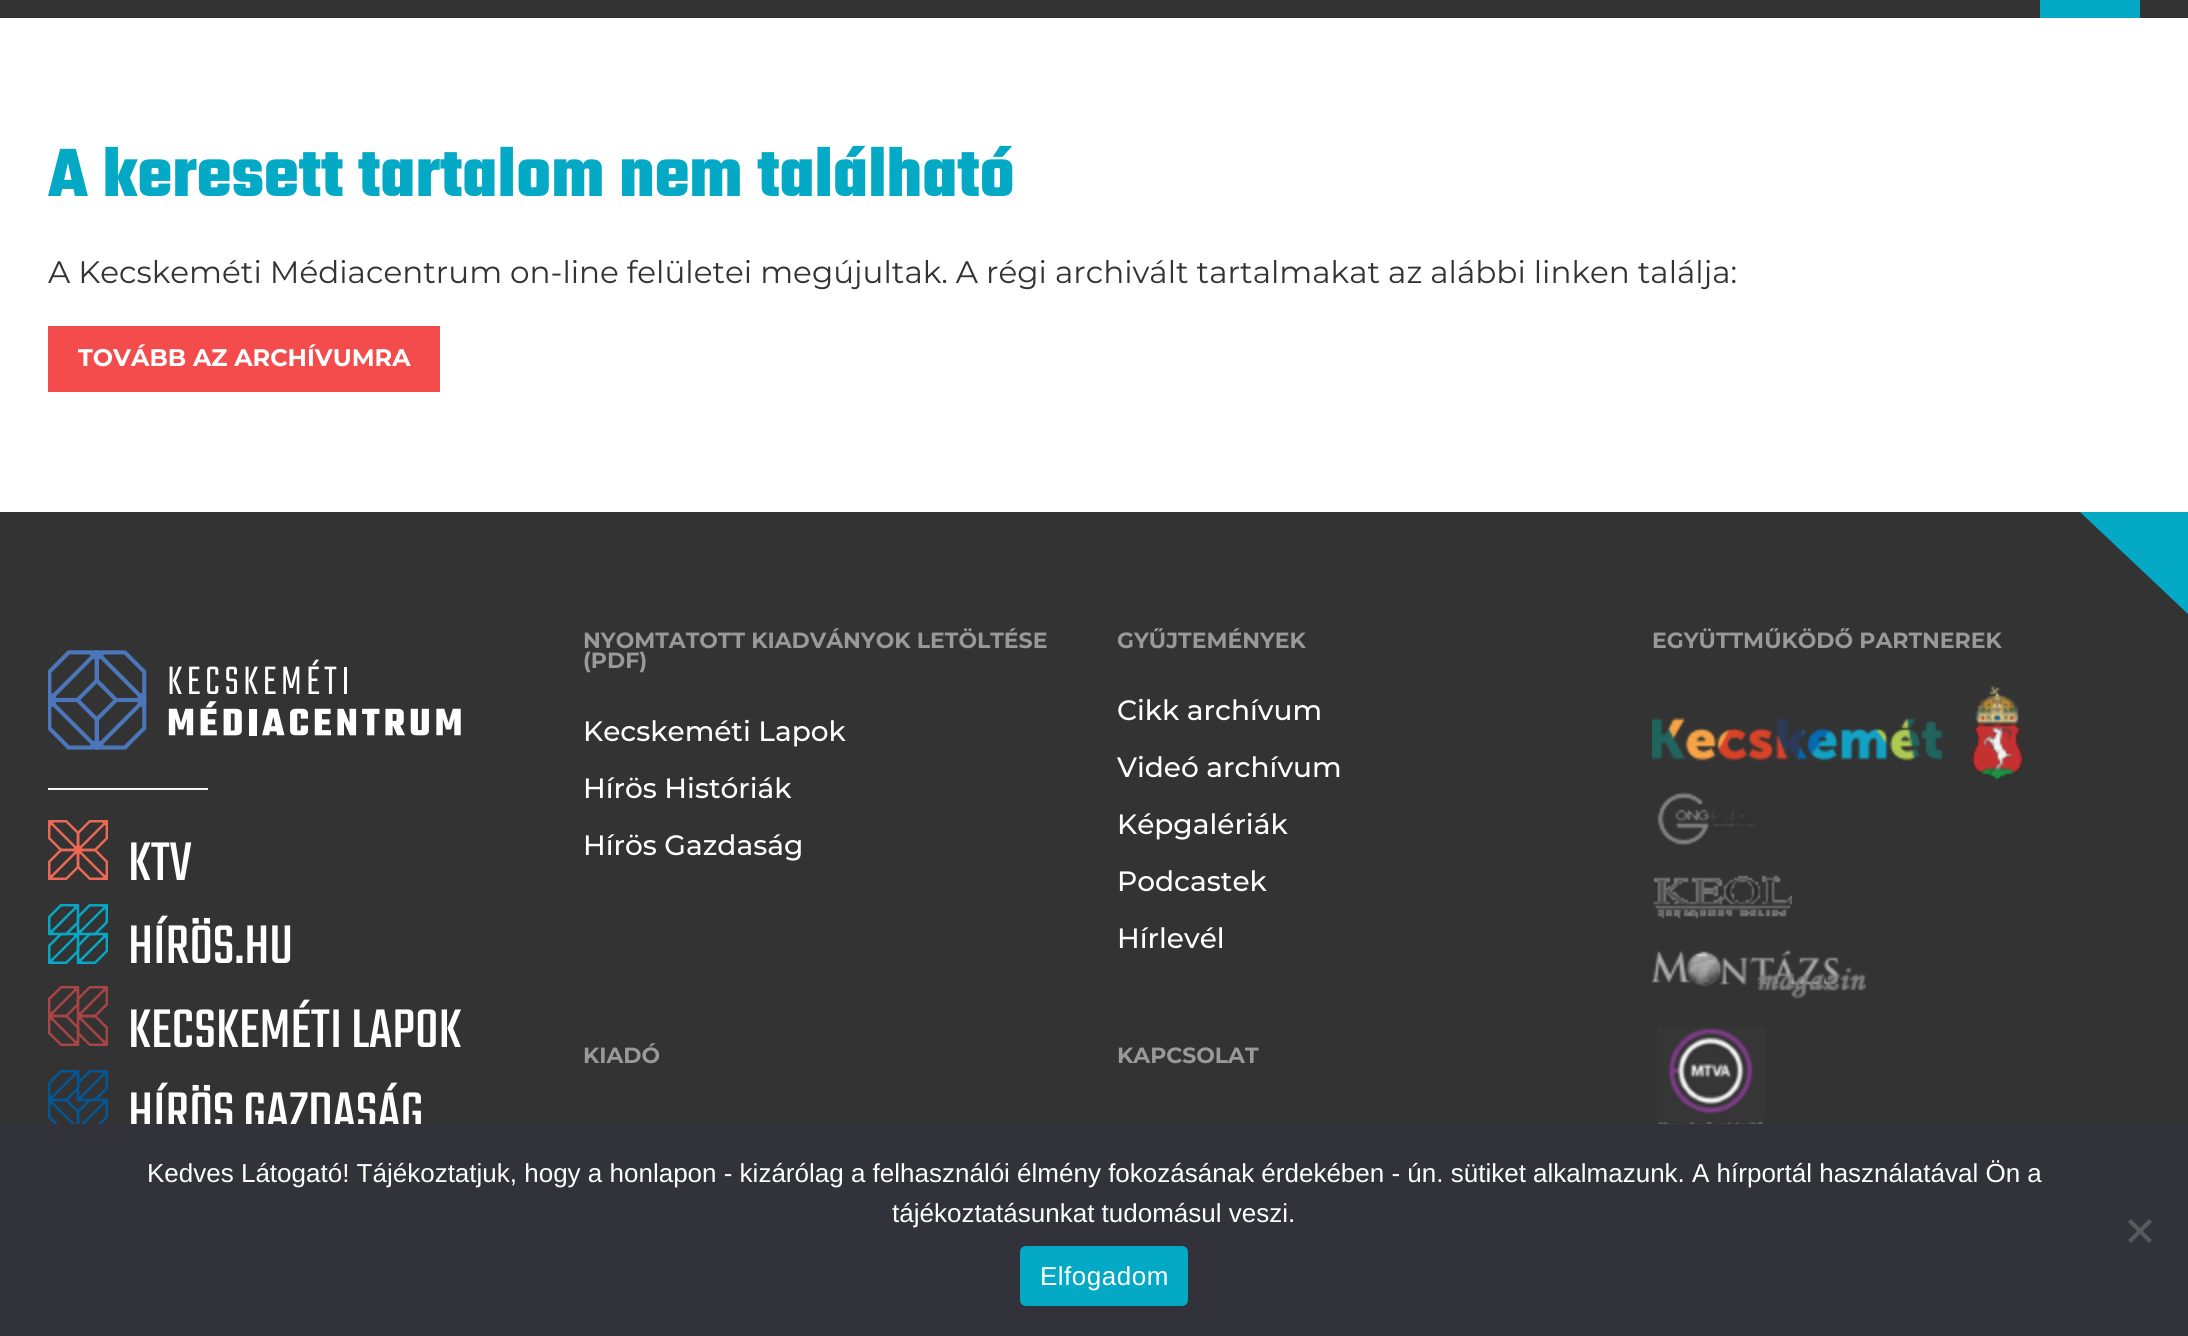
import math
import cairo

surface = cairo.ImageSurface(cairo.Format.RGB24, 2188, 1336)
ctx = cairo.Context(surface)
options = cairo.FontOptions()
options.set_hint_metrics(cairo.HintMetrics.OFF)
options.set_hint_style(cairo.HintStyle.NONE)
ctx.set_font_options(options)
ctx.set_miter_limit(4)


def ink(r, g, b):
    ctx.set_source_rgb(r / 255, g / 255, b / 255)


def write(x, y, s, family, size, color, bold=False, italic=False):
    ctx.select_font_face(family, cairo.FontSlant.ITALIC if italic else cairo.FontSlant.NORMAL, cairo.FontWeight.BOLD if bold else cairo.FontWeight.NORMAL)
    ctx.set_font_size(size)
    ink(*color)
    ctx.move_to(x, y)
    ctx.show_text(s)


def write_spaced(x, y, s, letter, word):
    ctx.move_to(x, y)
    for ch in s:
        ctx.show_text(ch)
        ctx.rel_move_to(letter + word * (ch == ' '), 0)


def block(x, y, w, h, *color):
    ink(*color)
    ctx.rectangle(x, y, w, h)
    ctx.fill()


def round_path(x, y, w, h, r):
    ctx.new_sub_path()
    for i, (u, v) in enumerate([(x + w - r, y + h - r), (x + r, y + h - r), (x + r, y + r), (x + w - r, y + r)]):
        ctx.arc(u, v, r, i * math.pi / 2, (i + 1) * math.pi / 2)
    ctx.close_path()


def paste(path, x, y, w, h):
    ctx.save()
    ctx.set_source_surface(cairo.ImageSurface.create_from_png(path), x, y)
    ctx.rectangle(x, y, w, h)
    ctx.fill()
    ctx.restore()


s1 = dict(family="Teko", size=73.5, color=(3, 169, 197), bold=True)
s2 = dict(family="Montserrat", size=24, color=(255, 255, 255), bold=True)
s3 = dict(family="Montserrat", size=22, color=(153, 153, 153), bold=True)
s4 = dict(family="Montserrat Medium", size=28, color=(255, 255, 255))
s5 = dict(family="Teko", size=60, color=(255, 255, 255))
s6 = dict(family="Liberation Sans", size=26, color=(255, 255, 255))

ink(255, 255, 255)
ctx.paint()
block(0, 0, 2188, 18, 51, 51, 51)
block(2040, 0, 100, 18, 3, 169, 197)
write(48, 196, "A keresett tartalom nem található", **s1)
ctx.select_font_face("Montserrat")
ctx.set_font_size(31.07)
ink(51, 51, 51)
write_spaced(48, 283, "A Kecskeméti Médiacentrum on-line felületei megújultak. A régi archivált tartalmakat az alábbi linken találja:", 0, -0.2)
block(48, 326, 392, 66, 244, 76, 76)
write(78, 366, "TOVÁBB AZ ARCHÍVUMRA", **s2)
block(2080, 512, 108, 102, 3, 169, 197)
ink(51, 51, 51)
ctx.new_path()
ctx.move_to(0, 512)
ctx.line_to(0, 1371)
ctx.line_to(2188, 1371)
ctx.line_to(2188, 614)
ctx.line_to(2080, 512)
ctx.close_path()
ctx.fill()
write(583, 648, "NYOMTATOTT KIADVÁNYOK LETÖLTÉSE", **s3)
write(583, 668, "(PDF)", **s3)
write(583, 741, "Kecskeméti Lapok", **s4)
write(583, 798, "Hírös Históriák", **s4)
write(583, 855, "Hírös Gazdaság", **s4)
write(583, 1063, "KIADÓ", **s3)
write(1117, 648, "GYŰJTEMÉNYEK", **s3)
write(1117, 720, "Cikk archívum", **s4)
write(1117, 777, "Videó archívum", **s4)
write(1117, 834, "Képgalériák", **s4)
write(1117, 891, "Podcastek", **s4)
write(1117, 948, "Hírlevél", **s4)
write(1117, 1063, "KAPCSOLAT", **s3)
write(1652, 648, "EGYÜTTMŰKÖDŐ PARTNEREK", **s3)
paste("pic1.png", 1652, 686, 370, 96)
paste("pic2.png", 1657, 791, 98, 55)
paste("pic3.png", 1653, 875, 139, 44)
paste("pic4.png", 1652, 949, 214, 50)
paste("pic5.png", 1657, 1027, 108, 97)
paste("pic6.png", 48, 650, 413, 100)
block(48, 788, 160, 2, 245, 245, 245)
paste("pic7.png", 48, 820, 60, 60)
write(128, 880, "KTV", **s5)
paste("pic8.png", 48, 904, 60, 60)
write(128, 963, "HÍRÖS.HU", **s5)
paste("pic9.png", 48, 986, 60, 60)
write(128, 1047, "KECSKEMÉTI LAPOK", **s5)
paste("pic10.png", 48, 1070, 60, 54)
write(128, 1130, "HÍRÖS GAZDASÁG", **s5)
block(0, 1124, 2188, 212, 50, 50, 58)
write(147, 1182, "Kedves Látogató! Tájékoztatjuk, hogy a honlapon - kizárólag a felhasználói élmény fokozásának érdekében - ún. sütiket alkalmazunk. A hírportál használatával Ön a", **s6)
write(892, 1222, "tájékoztatásunkat tudomásul veszi.", **s6)
ink(89, 89, 93)
ctx.new_path()
ctx.move_to(2149, 1219)
ctx.line_to(2152, 1222)
ctx.line_to(2131, 1243)
ctx.line_to(2128, 1240)
ctx.close_path()
ctx.fill()
ctx.new_path()
ctx.move_to(2128, 1222)
ctx.line_to(2131, 1219)
ctx.line_to(2152, 1240)
ctx.line_to(2149, 1243)
ctx.close_path()
ctx.fill()
ink(3, 169, 197)
round_path(1020, 1246, 168, 60, 6)
ctx.fill()
ink(255, 255, 255)
write_spaced(1040, 1285, "Elfogadom", 0.5, 0)
surface.write_to_png("screenshot.png")
